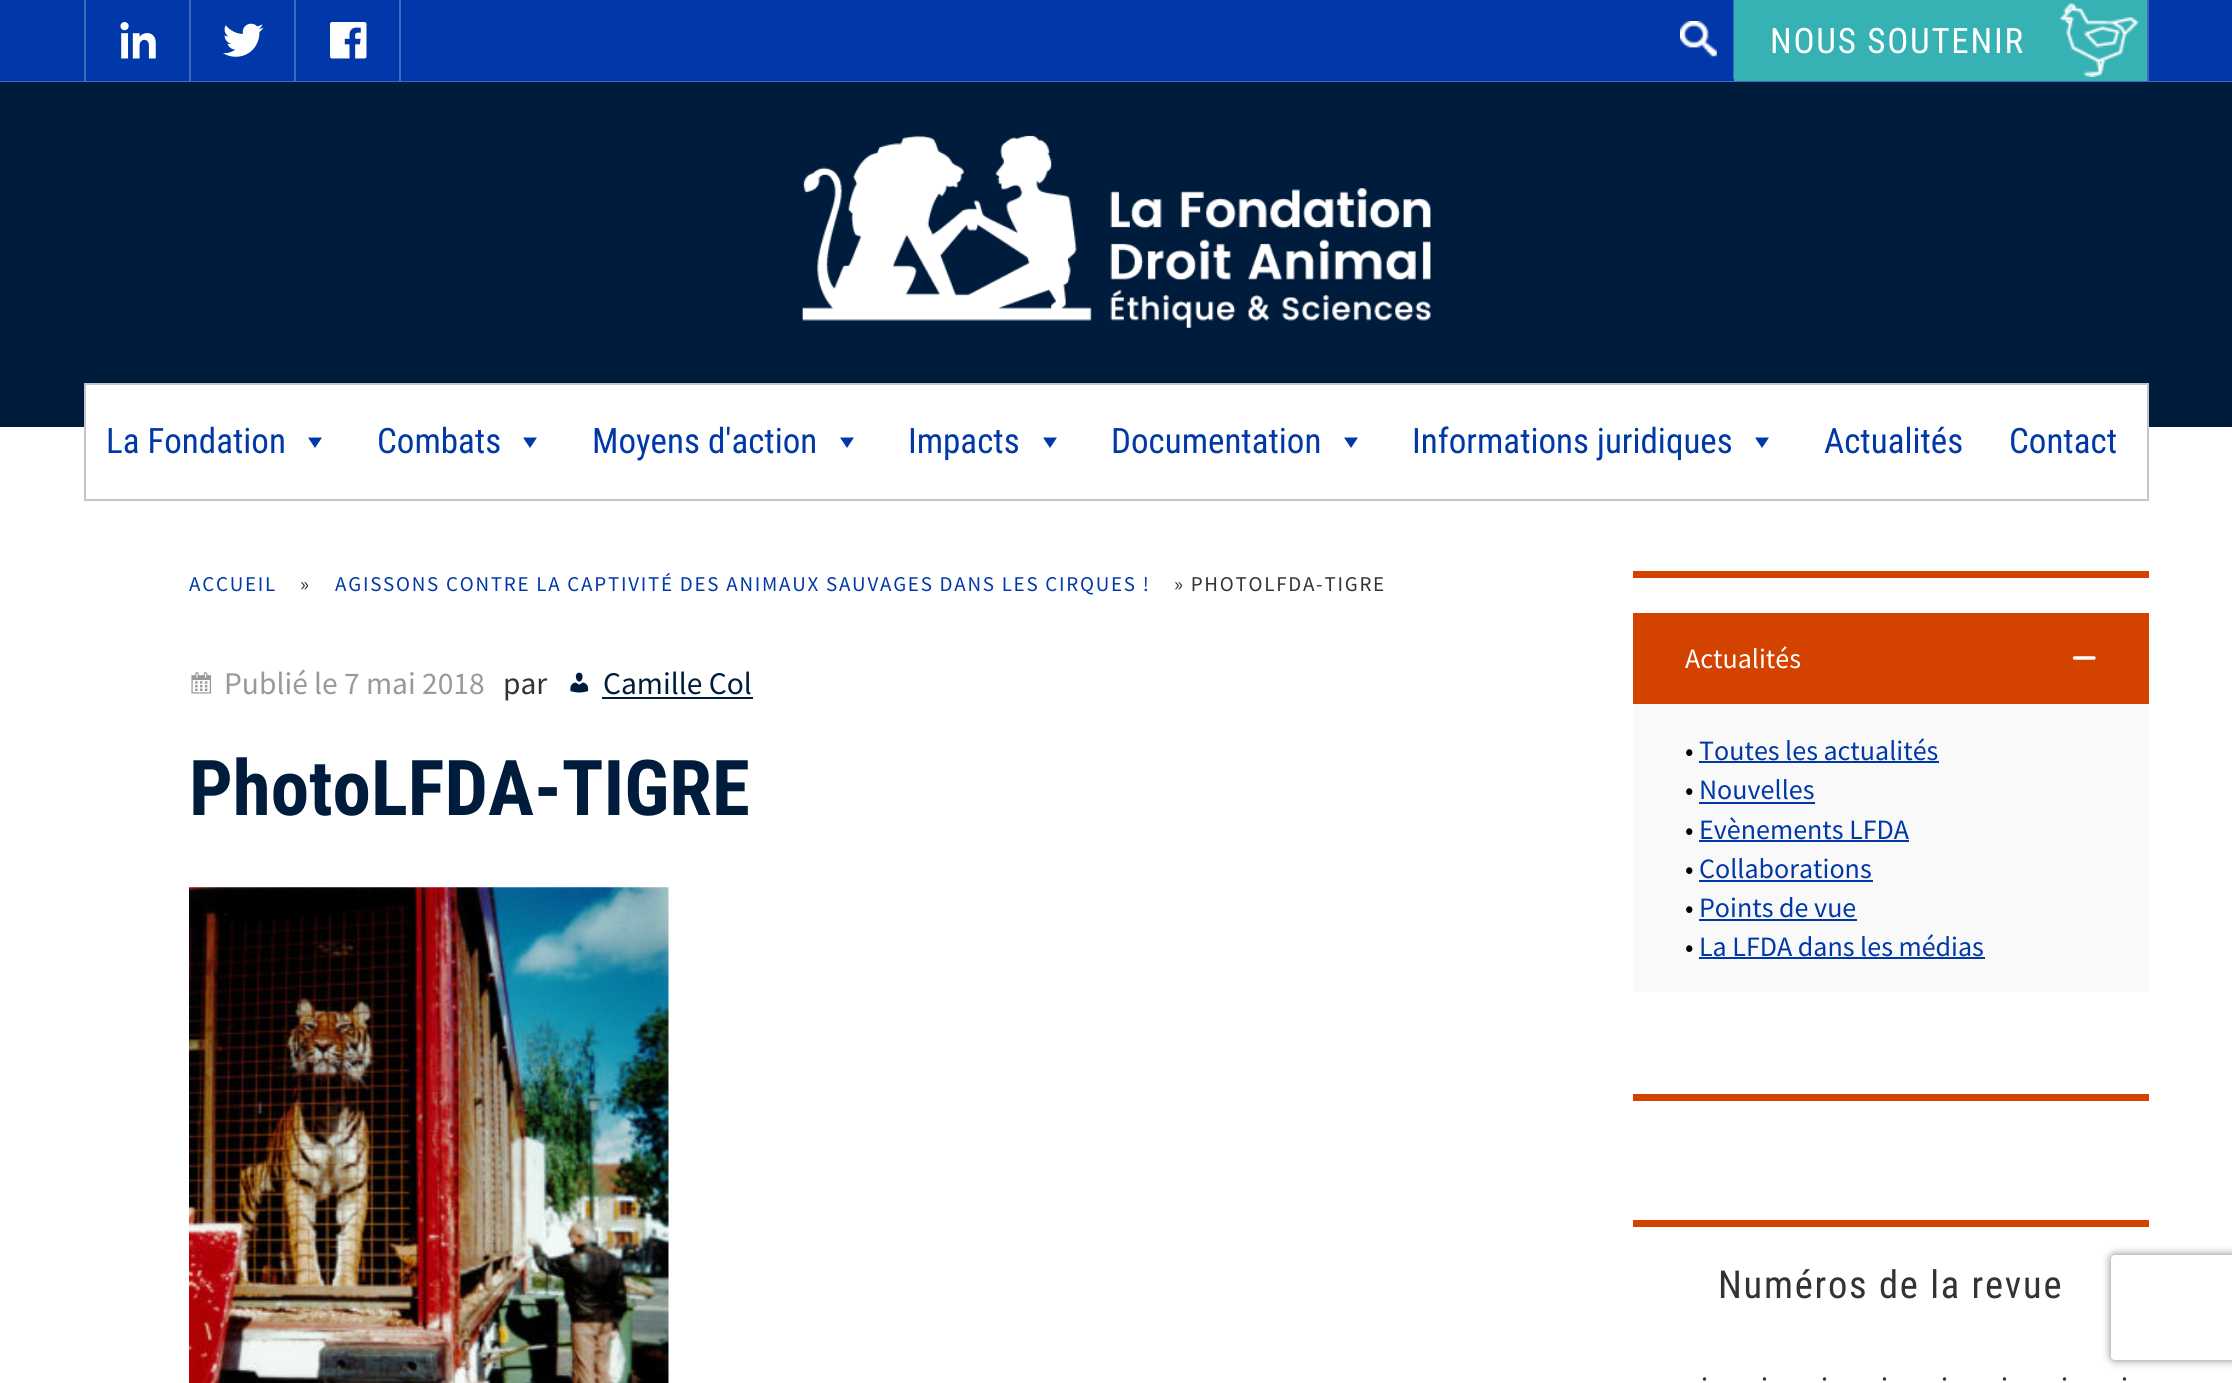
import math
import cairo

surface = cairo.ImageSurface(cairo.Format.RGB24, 2232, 1383)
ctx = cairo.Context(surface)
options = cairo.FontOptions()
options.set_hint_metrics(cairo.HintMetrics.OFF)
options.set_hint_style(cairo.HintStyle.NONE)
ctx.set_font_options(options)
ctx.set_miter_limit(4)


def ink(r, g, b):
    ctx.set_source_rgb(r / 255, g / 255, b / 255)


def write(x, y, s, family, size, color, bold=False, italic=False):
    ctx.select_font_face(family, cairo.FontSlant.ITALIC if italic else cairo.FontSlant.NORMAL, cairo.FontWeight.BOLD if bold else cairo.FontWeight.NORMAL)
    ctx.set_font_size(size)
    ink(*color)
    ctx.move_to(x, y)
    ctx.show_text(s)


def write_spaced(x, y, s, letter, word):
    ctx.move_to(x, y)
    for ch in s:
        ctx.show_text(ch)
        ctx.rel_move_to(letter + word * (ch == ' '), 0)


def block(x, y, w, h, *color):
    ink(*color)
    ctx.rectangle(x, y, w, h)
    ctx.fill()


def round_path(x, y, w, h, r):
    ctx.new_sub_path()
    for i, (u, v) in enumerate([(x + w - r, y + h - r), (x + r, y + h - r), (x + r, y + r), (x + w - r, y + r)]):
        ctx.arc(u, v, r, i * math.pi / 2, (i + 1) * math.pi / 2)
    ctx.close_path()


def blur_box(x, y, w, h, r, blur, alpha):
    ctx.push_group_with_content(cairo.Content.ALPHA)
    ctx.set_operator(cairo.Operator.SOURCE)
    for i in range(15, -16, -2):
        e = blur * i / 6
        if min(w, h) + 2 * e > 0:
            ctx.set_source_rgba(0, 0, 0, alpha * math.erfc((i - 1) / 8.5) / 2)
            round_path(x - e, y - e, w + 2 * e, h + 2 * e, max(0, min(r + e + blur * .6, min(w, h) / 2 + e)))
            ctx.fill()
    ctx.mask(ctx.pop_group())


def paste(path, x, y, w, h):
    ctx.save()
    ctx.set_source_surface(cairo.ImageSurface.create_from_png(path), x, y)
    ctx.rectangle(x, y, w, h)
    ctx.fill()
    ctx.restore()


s1 = dict(family="Roboto Condensed", size=35, color=(0, 56, 168))
s2 = dict(family="Source Sans Pro", size=31.5, color=(153, 153, 153))
s3 = dict(family="Source Sans Pro", size=31.5, color=(51, 51, 51))
s4 = dict(family="Source Sans Pro", size=31.5, color=(0, 28, 61))
s5 = dict(family="Roboto Condensed", size=77, color=(0, 28, 61), bold=True)
s6 = dict(family="Source Sans Pro", size=28, color=(255, 255, 255))
s7 = dict(family="Source Sans Pro", size=28, color=(0, 0, 0))
s8 = dict(family="Source Sans Pro", size=28, color=(0, 56, 168))
s9 = dict(family="Source Sans Pro", size=28, color=(51, 51, 51))

ink(255, 255, 255)
ctx.paint()
block(0, 0, 2232, 81, 0, 56, 169)
block(0, 81, 2232, 1, 63, 105, 187)
block(84, 0, 2, 81, 63, 105, 187)
block(189, 0, 2, 81, 63, 105, 187)
paste("pic1.png", 120, 22, 36, 37)
block(294, 0, 2, 81, 63, 105, 187)
paste("pic2.png", 223, 23, 41, 34)
block(399, 0, 2, 81, 63, 105, 187)
paste("pic3.png", 330, 22, 37, 37)
block(1733, 0, 1, 79, 63, 105, 187)
paste("pic4.png", 1680, 21, 37, 36)
block(2147, 0, 2, 81, 63, 105, 187)
block(1734, 0, 413, 81, 54, 178, 181)
paste("pic5.png", 2059, 3, 80, 74)
ctx.select_font_face("Roboto Condensed")
ctx.set_font_size(35)
ink(255, 255, 255)
write_spaced(1770, 53, "NOUS SOUTENIR", 1.75, 0)
block(0, 82, 2232, 345, 0, 28, 61)
paste("pic6.png", 802, 135, 629, 193)
block(86, 385, 2061, 42, 255, 255, 255)
ctx.rectangle(85, 384, 2063, 116)
ink(197, 197, 205)
ctx.stroke()
write(106, 453, "La Fondation", **s1)
ctx.new_path()
ctx.move_to(322, 437.5)
ctx.line_to(315, 448)
ctx.line_to(308, 437.5)
ctx.close_path()
ctx.fill()
write(377, 453, "Combats", **s1)
ctx.new_path()
ctx.move_to(537, 437.5)
ctx.line_to(530, 448)
ctx.line_to(523, 437.5)
ctx.close_path()
ctx.fill()
write(592, 453, "Moyens d'action", **s1)
ctx.new_path()
ctx.move_to(854, 437.5)
ctx.line_to(847, 448)
ctx.line_to(840, 437.5)
ctx.close_path()
ctx.fill()
write(908, 453, "Impacts", **s1)
ctx.new_path()
ctx.move_to(1057, 437.5)
ctx.line_to(1050, 448)
ctx.line_to(1043, 437.5)
ctx.close_path()
ctx.fill()
write(1111, 453, "Documentation", **s1)
ctx.new_path()
ctx.move_to(1358, 437.5)
ctx.line_to(1351, 448)
ctx.line_to(1344, 437.5)
ctx.close_path()
ctx.fill()
write(1412, 453, "Informations juridiques", **s1)
ctx.new_path()
ctx.move_to(1769, 437.5)
ctx.line_to(1762, 448)
ctx.line_to(1755, 437.5)
ctx.close_path()
ctx.fill()
write(1824, 453, "Actualités", **s1)
write(2009, 453, "Contact", **s1)
ctx.select_font_face("Source Sans Pro")
ctx.set_font_size(21)
write_spaced(189, 591, "ACCUEIL", 1.75, 0)
ink(51, 51, 51)
write_spaced(300, 591, "»", 1.75, 0)
ink(0, 56, 168)
write_spaced(335, 591, "AGISSONS CONTRE LA CAPTIVITÉ DES ANIMAUX SAUVAGES DANS LES CIRQUES !", 1.75, 0)
ink(51, 51, 51)
write_spaced(1174, 591, "» PHOTOLFDA-TIGRE", 1.75, 0)
paste("pic7.png", 191, 672, 21, 22)
write(224, 694, "Publié le 7 mai 2018", **s2)
write(503, 694, "par", **s3)
paste("pic8.png", 570, 672, 19, 21)
write(603, 694, "Camille Col", **s4)
block(602, 697, 151, 2, 0, 28, 61)
write(189, 815, "PhotoLFDA-TIGRE", **s5)
paste("pic9.png", 189, 887, 480, 496)
block(1633, 571, 516, 7, 212, 66, 0)
block(1633, 613, 516, 91, 212, 66, 0)
write(1685, 668, "Actualités", **s6)
paste("pic10.png", 2072, 656, 24, 4)
block(1633, 704, 516, 288, 249, 249, 249)
write(1685, 760, "•", **s7)
write(1699, 760, "Toutes les actualités", **s8)
block(1699, 761, 240, 2, 0, 56, 168)
write(1685, 799, "•", **s7)
write(1699, 799, "Nouvelles", **s8)
block(1699, 802, 116, 2, 0, 56, 168)
write(1685, 839, "•", **s7)
write(1699, 839, "Evènements LFDA", **s8)
block(1699, 840, 210, 2, 0, 56, 168)
write(1685, 878, "•", **s7)
write(1699, 878, "Collaborations", **s8)
block(1699, 880, 174, 2, 0, 56, 168)
write(1685, 917, "•", **s7)
write(1699, 917, "Points de vue", **s8)
block(1699, 919, 158, 2, 0, 56, 168)
write(1685, 956, "•", **s7)
write(1699, 956, "La LFDA dans les médias", **s8)
block(1699, 957, 286, 2, 0, 56, 168)
block(1633, 1094, 516, 7, 212, 66, 0)
block(1633, 1220, 516, 7, 212, 66, 0)
ctx.select_font_face("Roboto Condensed")
ctx.set_font_size(38.5)
ink(51, 51, 51)
write_spaced(1718, 1298, "Numéros de la revue", 1.75, 0)
write(1701, 1388, "·", **s9)
write(1761, 1388, "·", **s9)
write(1821, 1388, "·", **s9)
write(1881, 1388, "·", **s9)
write(1941, 1388, "·", **s9)
write(2001, 1388, "·", **s9)
write(2061, 1388, "·", **s9)
write(2121, 1388, "·", **s9)
ctx.save()
ctx.set_fill_rule(cairo.FillRule.EVEN_ODD)
ctx.new_path()
ctx.move_to(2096, 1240)
ctx.line_to(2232, 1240)
ctx.line_to(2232, 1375)
ctx.line_to(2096, 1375)
ctx.close_path()
ctx.move_to(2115, 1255)
ctx.line_to(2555, 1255)
ctx.curve_to(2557, 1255, 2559, 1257, 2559, 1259)
ctx.line_to(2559, 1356)
ctx.curve_to(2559, 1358, 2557, 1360, 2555, 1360)
ctx.line_to(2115, 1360)
ctx.curve_to(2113, 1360, 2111, 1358, 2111, 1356)
ctx.line_to(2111, 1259)
ctx.curve_to(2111, 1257, 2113, 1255, 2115, 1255)
ctx.close_path()
ctx.clip()
ink(128, 128, 128)
blur_box(2111, 1255, 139, 105, 4, 4.5, 1)
ctx.restore()
surface.write_to_png("screenshot.png")
